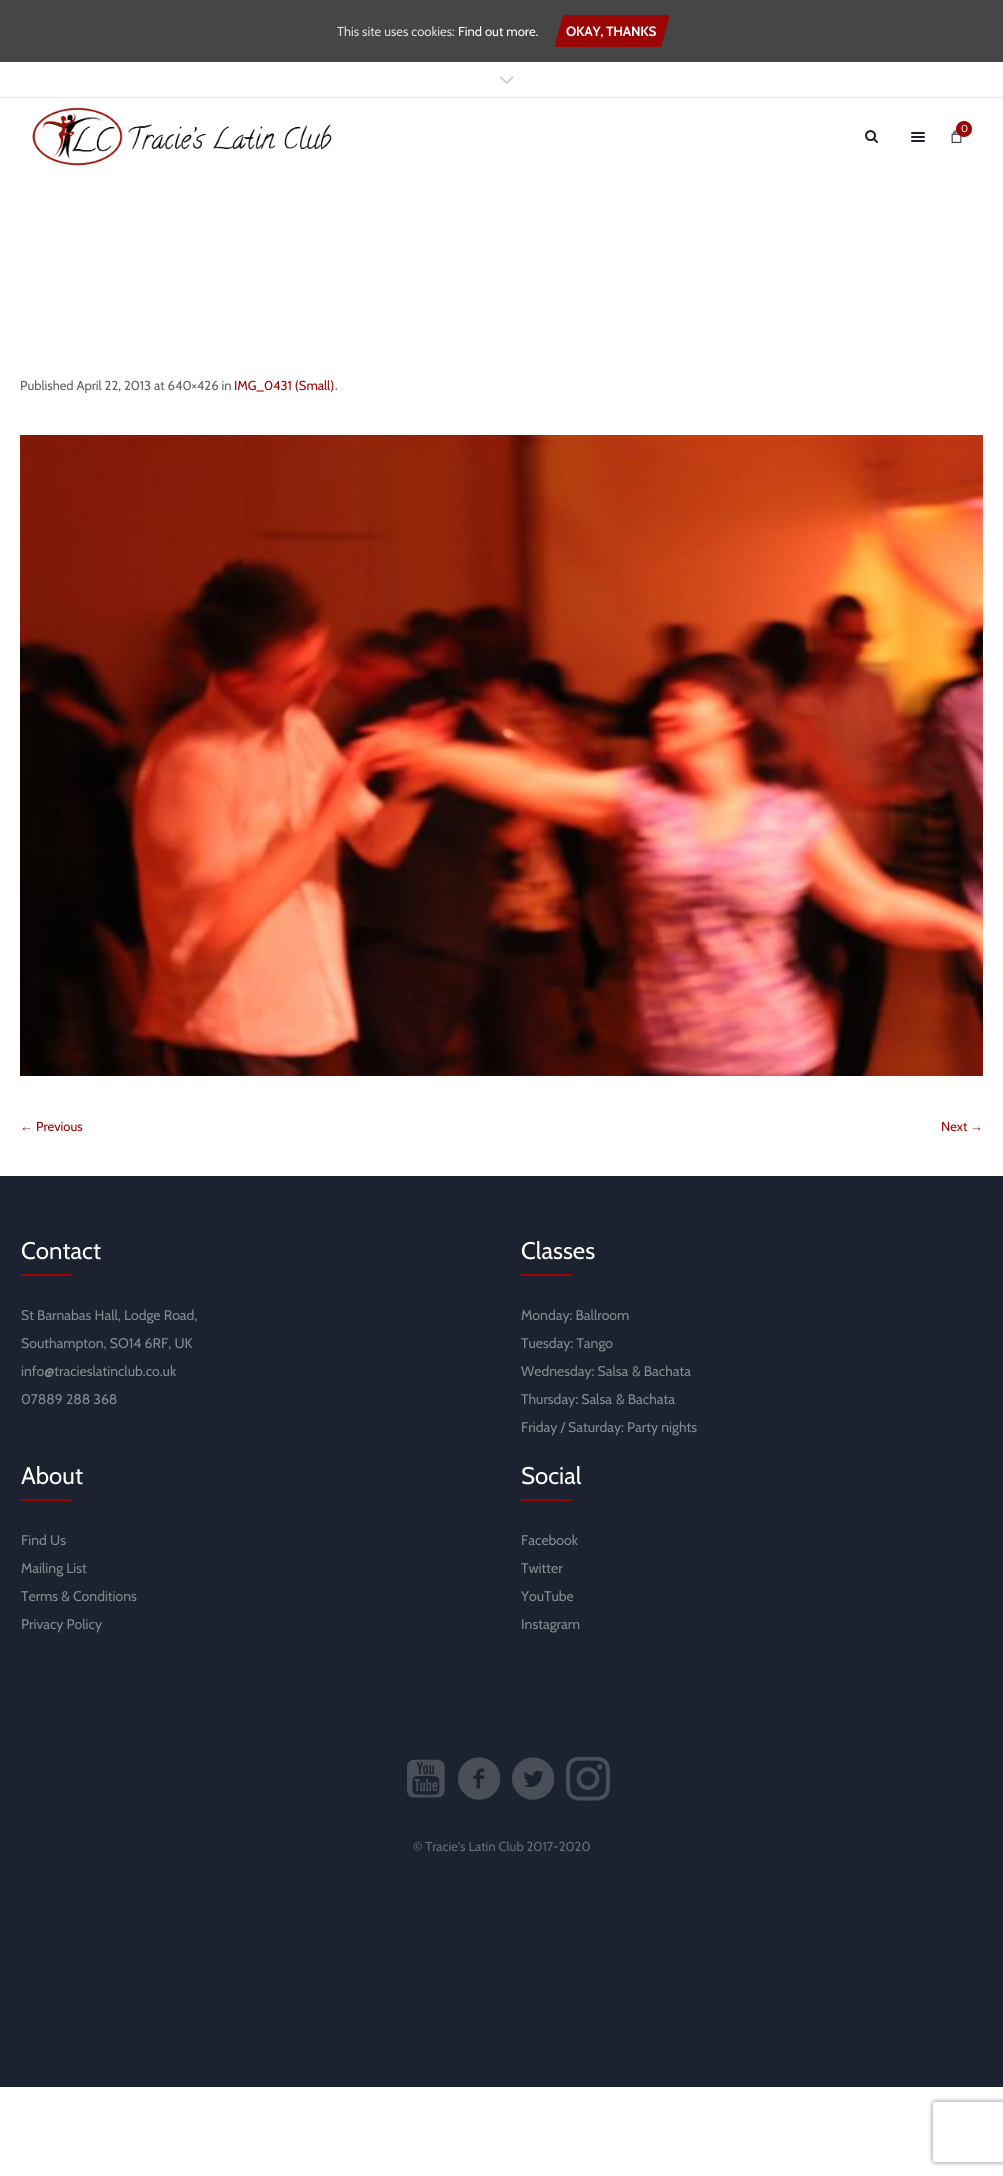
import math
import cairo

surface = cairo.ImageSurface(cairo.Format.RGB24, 1003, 2176)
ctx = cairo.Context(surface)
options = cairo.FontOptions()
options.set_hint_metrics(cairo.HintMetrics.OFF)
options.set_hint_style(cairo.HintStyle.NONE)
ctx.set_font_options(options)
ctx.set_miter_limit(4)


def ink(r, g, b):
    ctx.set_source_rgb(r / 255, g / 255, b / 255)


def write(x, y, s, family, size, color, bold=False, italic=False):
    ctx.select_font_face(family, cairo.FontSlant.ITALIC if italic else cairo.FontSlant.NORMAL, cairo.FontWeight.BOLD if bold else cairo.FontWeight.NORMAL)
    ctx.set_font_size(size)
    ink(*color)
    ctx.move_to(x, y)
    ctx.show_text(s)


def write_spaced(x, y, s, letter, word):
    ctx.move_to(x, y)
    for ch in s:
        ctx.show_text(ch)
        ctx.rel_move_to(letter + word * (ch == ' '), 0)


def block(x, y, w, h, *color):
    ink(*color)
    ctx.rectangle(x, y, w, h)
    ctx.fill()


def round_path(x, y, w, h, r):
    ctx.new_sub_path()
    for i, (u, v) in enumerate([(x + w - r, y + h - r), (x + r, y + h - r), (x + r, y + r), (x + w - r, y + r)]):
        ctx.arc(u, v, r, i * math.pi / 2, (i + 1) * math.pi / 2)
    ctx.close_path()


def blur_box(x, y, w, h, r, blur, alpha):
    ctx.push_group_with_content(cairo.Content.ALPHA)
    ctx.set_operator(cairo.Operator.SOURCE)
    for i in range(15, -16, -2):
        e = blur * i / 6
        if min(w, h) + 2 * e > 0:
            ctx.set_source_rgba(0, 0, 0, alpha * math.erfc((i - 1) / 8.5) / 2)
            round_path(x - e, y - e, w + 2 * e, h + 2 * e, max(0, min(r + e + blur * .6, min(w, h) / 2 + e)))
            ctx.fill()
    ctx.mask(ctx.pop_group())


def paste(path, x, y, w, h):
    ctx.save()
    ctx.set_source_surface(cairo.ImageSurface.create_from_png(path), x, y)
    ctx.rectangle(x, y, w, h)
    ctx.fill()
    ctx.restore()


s1 = dict(family="Cabin", size=13, color=(221, 221, 221))
s2 = dict(family="Cabin", size=13, color=(255, 255, 255))
s3 = dict(family="Cabin", size=10, color=(255, 255, 255))
s4 = dict(family="Cabin", size=13, color=(96, 96, 96))
s5 = dict(family="Cabin", size=13, color=(154, 6, 6))
s6 = dict(family="Liberation Sans", size=13, color=(154, 6, 6))
s7 = dict(family="Cabin", size=24, color=(255, 255, 255))
s8 = dict(family="Cabin", size=14, color=(134, 137, 145))
s9 = dict(family="Cabin", size=13, color=(106, 109, 116))

ink(255, 255, 255)
ctx.paint()
block(0, 0, 1003, 62, 70, 70, 70)
write(337, 36, "This site uses cookies:", **s1)
write(458, 36, "Find out more.", **s2)
ink(154, 6, 6)
ctx.new_path()
ctx.move_to(565, 15)
ctx.line_to(667, 15)
ctx.curve_to(669, 15, 670, 16, 669, 18)
ctx.line_to(662, 44)
ctx.curve_to(662, 46, 660, 47, 659, 47)
ctx.line_to(557, 47)
ctx.curve_to(555, 47, 554, 46, 555, 44)
ctx.line_to(562, 18)
ctx.curve_to(562, 16, 564, 15, 565, 15)
ctx.close_path()
ctx.fill()
ctx.select_font_face("Cabin", cairo.FontSlant.NORMAL, cairo.FontWeight.BOLD)
ctx.set_font_size(13.5)
ink(255, 255, 255)
write_spaced(566, 36, "OKAY, THANKS", -0.25, 0)
block(0, 97, 1003, 1, 233, 233, 233)
paste("pic1.png", 500, 76, 14, 8)
paste("pic2.png", 32, 107, 300, 59)
paste("pic3.png", 951, 130, 11, 13)
ink(154, 6, 6)
ctx.arc(964, 129, 8, 0, 2 * math.pi)
ctx.fill()
write(961, 132, "0", **s3)
paste("pic4.png", 865, 130, 13, 14)
paste("pic5.png", 911, 132, 14, 10)
write(20, 390, "Published April 22, 2013 at 640×426 in", **s4)
write(234, 390, "IMG_0431 (Small)", **s5)
write(335, 390, ".", **s4)
paste("pic6.png", 20, 435, 963, 641)
write(20, 1131, "←", **s6)
write(36, 1131, "Previous", **s5)
write(941, 1131, "Next", **s5)
write(970, 1131, "→", **s6)
block(0, 1176, 1003, 911, 28, 34, 47)
write(21, 1259, "Contact", **s7)
block(21, 1274, 50, 2, 154, 6, 6)
write(21, 1320, "St Barnabas Hall, Lodge Road,", **s8)
write(21, 1348, "Southampton, SO14 6RF, UK", **s8)
write(21, 1376, "info@tracieslatinclub.co.uk", **s8)
write(21, 1404, "07889 288 368", **s8)
write(521, 1259, "Classes", **s7)
block(521, 1274, 50, 2, 154, 6, 6)
write(521, 1320, "Monday: Ballroom", **s8)
write(521, 1348, "Tuesday: Tango", **s8)
write(521, 1376, "Wednesday: Salsa", **s8)
write(632, 1376, "& Bachata", **s8)
write(521, 1404, "Thursday: Salsa", **s8)
write(616, 1404, "& Bachata", **s8)
write(521, 1432, "Friday / Saturday: Party nights", **s8)
write(21, 1484, "About", **s7)
block(21, 1499, 50, 2, 154, 6, 6)
write(21, 1545, "Find Us", **s8)
write(21, 1573, "Mailing List", **s8)
write(21, 1601, "Terms & Conditions", **s8)
write(21, 1629, "Privacy Policy", **s8)
write(521, 1484, "Social", **s7)
block(521, 1499, 50, 2, 154, 6, 6)
write(521, 1545, "Facebook", **s8)
write(521, 1573, "Twitter", **s8)
write(521, 1601, "YouTube", **s8)
write(521, 1629, "Instagram", **s8)
paste("pic7.png", 407, 1759, 38, 39)
paste("pic8.png", 458, 1757, 43, 43)
paste("pic9.png", 512, 1757, 43, 43)
paste("pic10.png", 566, 1757, 44, 44)
write(413, 1851, "© Tracie's Latin Club 2017-2020", **s9)
ctx.save()
ctx.set_fill_rule(cairo.FillRule.EVEN_ODD)
ctx.new_path()
ctx.move_to(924, 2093)
ctx.line_to(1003, 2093)
ctx.line_to(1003, 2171)
ctx.line_to(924, 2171)
ctx.close_path()
ctx.move_to(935, 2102)
ctx.line_to(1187, 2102)
ctx.curve_to(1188, 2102, 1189, 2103, 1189, 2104)
ctx.line_to(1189, 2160)
ctx.curve_to(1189, 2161, 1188, 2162, 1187, 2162)
ctx.line_to(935, 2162)
ctx.curve_to(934, 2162, 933, 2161, 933, 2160)
ctx.line_to(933, 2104)
ctx.curve_to(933, 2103, 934, 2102, 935, 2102)
ctx.close_path()
ctx.clip()
ink(128, 128, 128)
blur_box(933, 2102, 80, 60, 2, 2.5, 1)
ctx.restore()
surface.write_to_png("screenshot.png")
